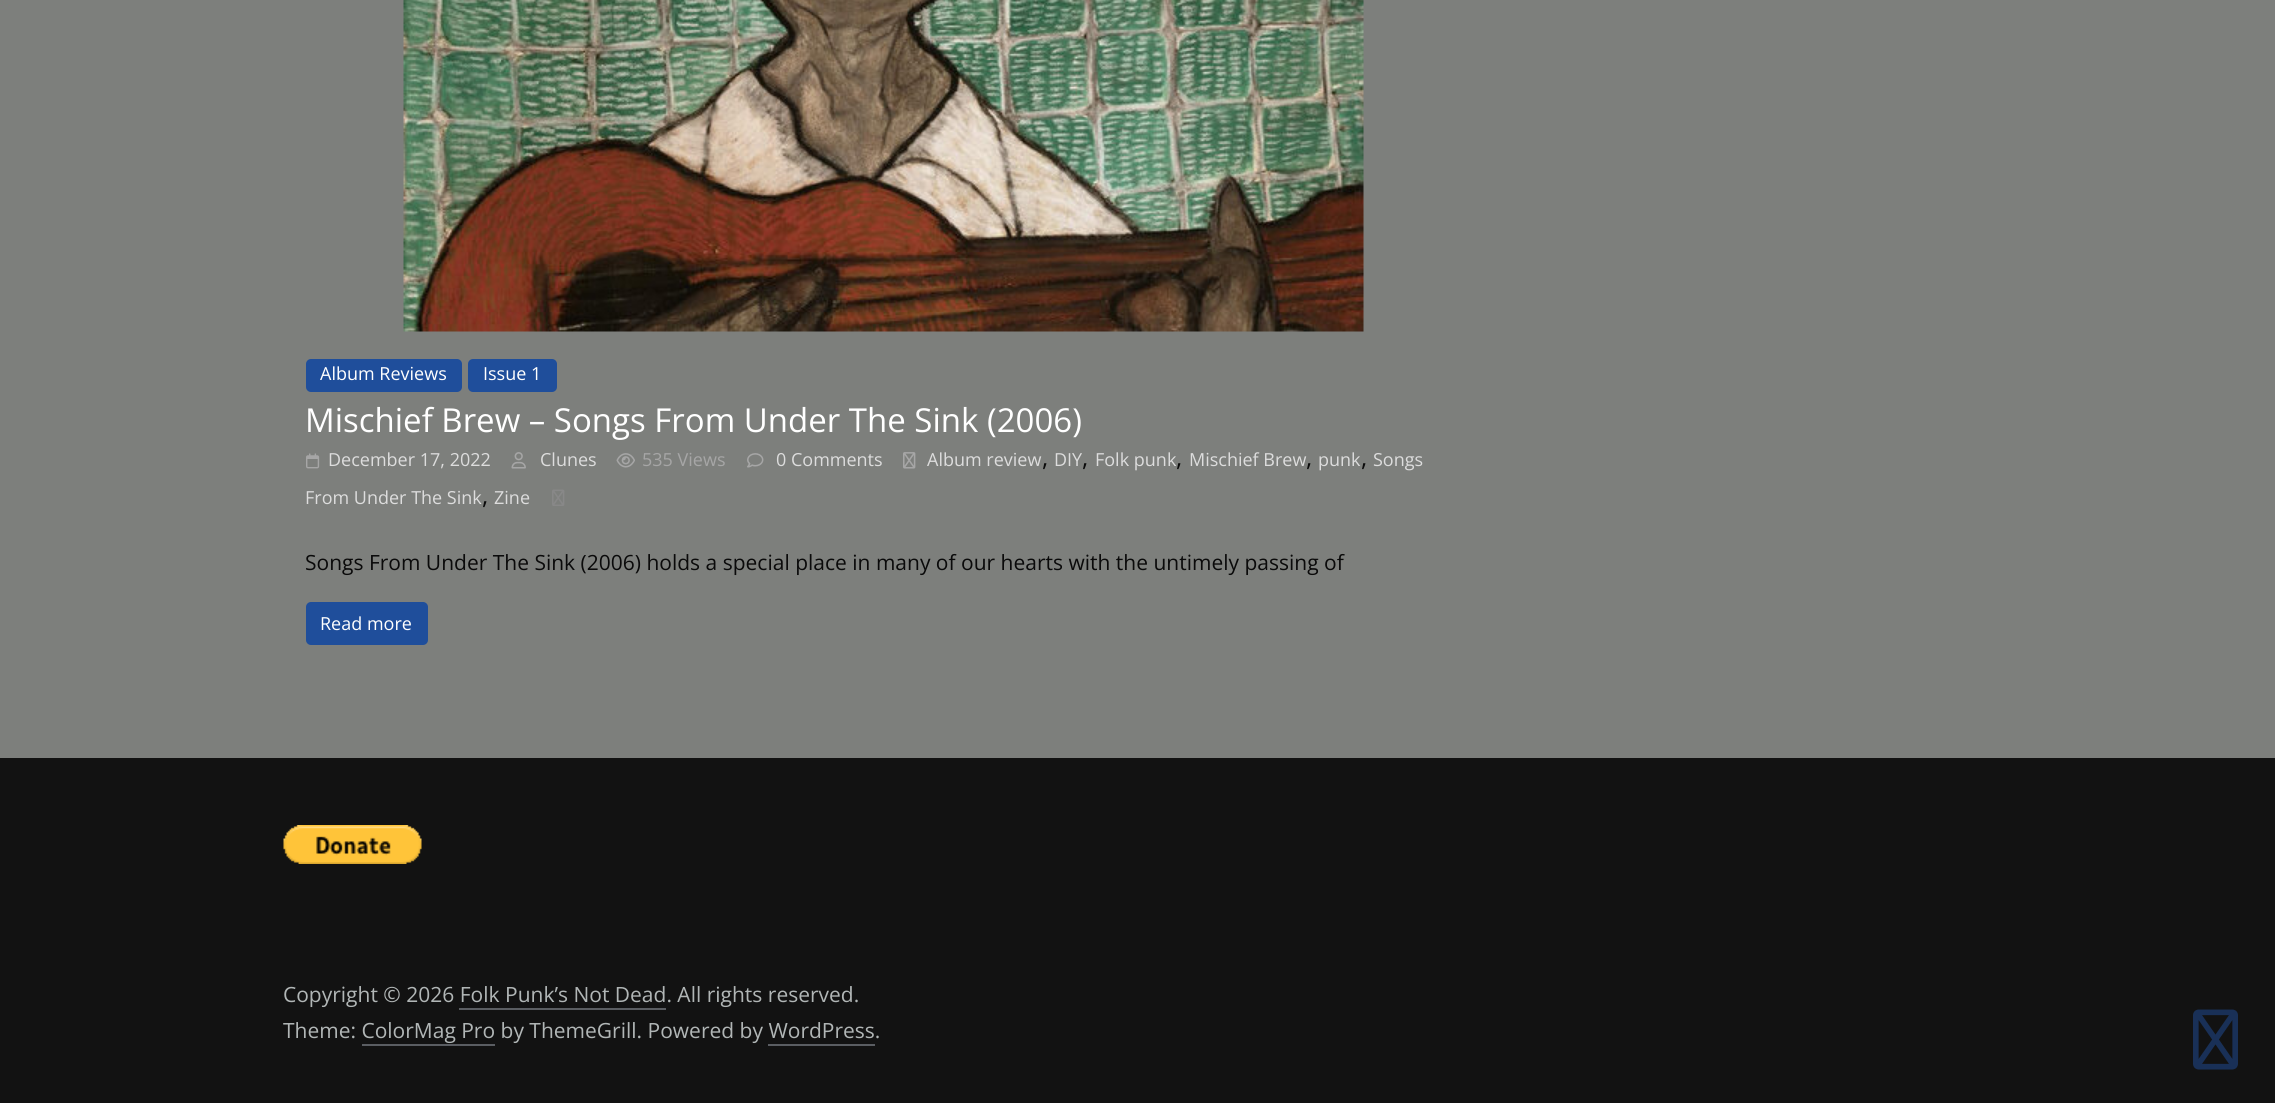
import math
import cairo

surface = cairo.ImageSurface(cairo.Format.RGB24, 2275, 1103)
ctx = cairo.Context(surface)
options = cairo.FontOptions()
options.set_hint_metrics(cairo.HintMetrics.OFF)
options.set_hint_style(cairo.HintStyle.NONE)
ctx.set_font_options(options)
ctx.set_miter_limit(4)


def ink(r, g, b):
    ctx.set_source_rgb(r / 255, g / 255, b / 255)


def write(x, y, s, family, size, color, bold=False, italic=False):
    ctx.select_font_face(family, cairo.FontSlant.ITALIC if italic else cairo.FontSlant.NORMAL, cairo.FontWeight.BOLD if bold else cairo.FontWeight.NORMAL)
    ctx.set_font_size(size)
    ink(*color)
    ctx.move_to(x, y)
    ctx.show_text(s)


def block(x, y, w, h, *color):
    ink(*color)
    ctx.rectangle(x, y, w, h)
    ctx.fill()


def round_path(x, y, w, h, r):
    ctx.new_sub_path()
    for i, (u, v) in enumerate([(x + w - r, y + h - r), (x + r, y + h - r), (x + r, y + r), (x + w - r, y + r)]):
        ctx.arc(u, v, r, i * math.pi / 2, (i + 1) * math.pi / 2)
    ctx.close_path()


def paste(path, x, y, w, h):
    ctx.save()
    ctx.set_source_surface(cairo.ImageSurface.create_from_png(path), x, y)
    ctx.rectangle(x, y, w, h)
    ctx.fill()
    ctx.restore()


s1 = dict(family="Open Sans", size=18, color=(255, 255, 255))
s2 = dict(family="Open Sans", size=33, color=(255, 255, 255))
s3 = dict(family="Open Sans", size=18, color=(221, 221, 221))
s4 = dict(family="Open Sans", size=24, color=(10, 10, 10))
s5 = dict(family="Open Sans", size=18, color=(166, 166, 166))
s6 = dict(family="Open Sans", size=21, color=(10, 10, 10))
s7 = dict(family="Open Sans", size=21, color=(177, 182, 182))

ink(125, 127, 124)
ctx.paint()
paste("pic1.png", 403, 0, 961, 332)
ink(31, 78, 155)
round_path(306, 359, 156, 33, 5)
ctx.fill()
write(320, 380, "Album Reviews", **s1)
ink(31, 78, 155)
round_path(468, 359, 89, 33, 5)
ctx.fill()
write(483, 380, "Issue 1", **s1)
write(305, 432, "Mischief Brew – Songs From Under The Sink (2006)", **s2)
paste("pic2.png", 903, 452, 13, 17)
write(927, 466, "Album review", **s3)
write(1042, 466, ",", **s4)
write(1054, 466, "DIY", **s3)
write(1082, 466, ",", **s4)
write(1095, 466, "Folk punk", **s3)
write(1176, 466, ",", **s4)
write(1189, 466, "Mischief Brew", **s3)
write(1306, 466, ",", **s4)
write(1318, 466, "punk", **s3)
write(1361, 466, ",", **s4)
write(1373, 466, "Songs", **s3)
write(305, 504, "From Under The Sink", **s3)
write(482, 504, ",", **s4)
write(494, 504, "Zine", **s3)
paste("pic3.png", 306, 453, 14, 16)
write(328, 466, "December 17, 2022", **s3)
paste("pic4.png", 511, 452, 15, 17)
write(540, 466, "Clunes", **s3)
paste("pic5.png", 616, 453, 19, 15)
write(642, 466, "535 Views", **s5)
paste("pic6.png", 747, 453, 17, 15)
write(776, 466, "0 Comments", **s3)
paste("pic7.png", 552, 489, 13, 17)
write(305, 570, "Songs From Under The Sink (2006) holds a special place in many of our hearts with the untimely passing of", **s6)
ink(31, 78, 155)
round_path(306, 602, 122, 43, 5)
ctx.fill()
write(320, 630, "Read more", **s1)
block(0, 758, 2275, 345, 18, 18, 18)
paste("pic8.png", 283, 825, 139, 39)
write(283, 1002, "Copyright © 2026 Folk Punk’s Not Dead. All rights reserved.", **s7)
block(459, 1008, 207, 2, 90, 93, 98)
write(283, 1038, "Theme: ColorMag Pro by ThemeGrill. Powered by WordPress.", **s7)
block(362, 1044, 133, 2, 90, 93, 98)
block(768, 1044, 107, 2, 90, 93, 98)
paste("pic9.png", 2193, 1009, 45, 61)
surface.write_to_png("screenshot.png")
